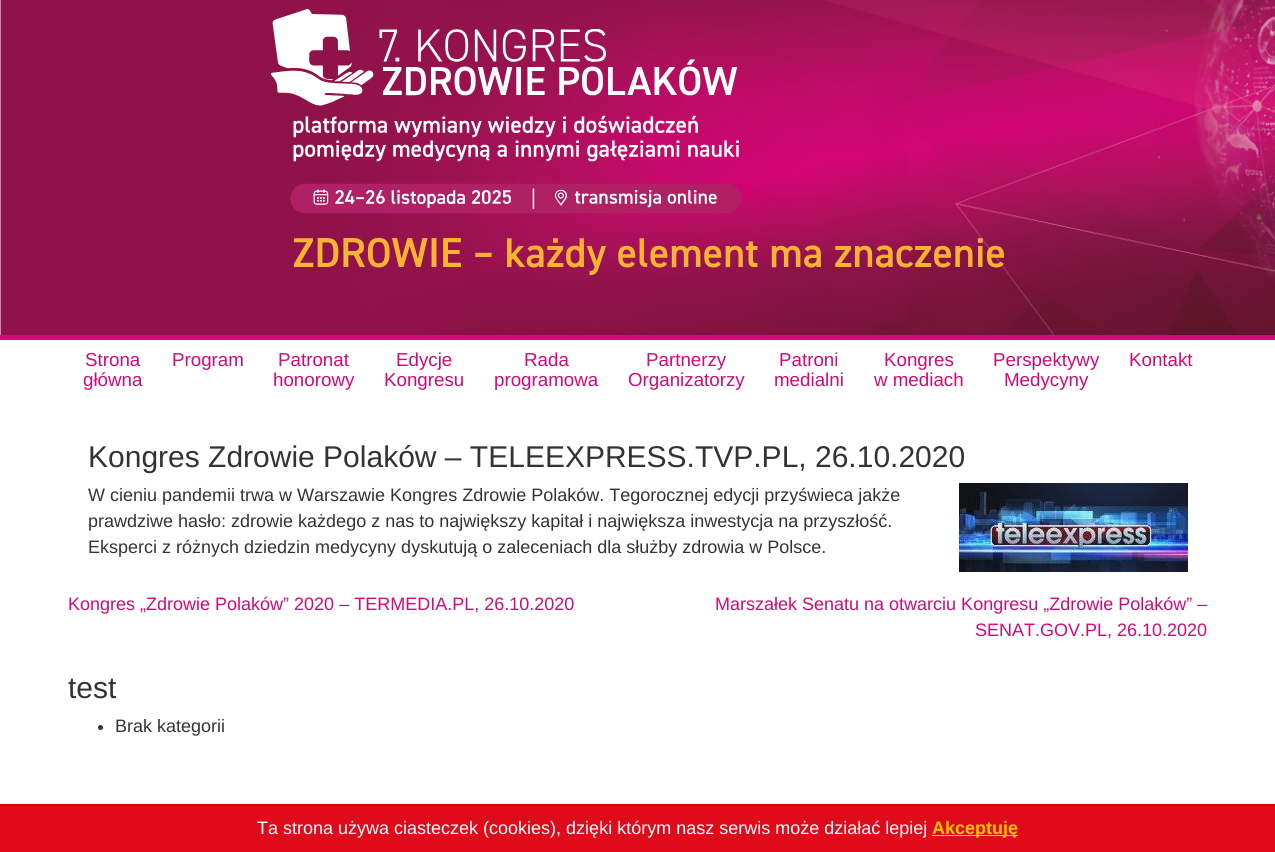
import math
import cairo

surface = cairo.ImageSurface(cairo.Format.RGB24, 1275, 852)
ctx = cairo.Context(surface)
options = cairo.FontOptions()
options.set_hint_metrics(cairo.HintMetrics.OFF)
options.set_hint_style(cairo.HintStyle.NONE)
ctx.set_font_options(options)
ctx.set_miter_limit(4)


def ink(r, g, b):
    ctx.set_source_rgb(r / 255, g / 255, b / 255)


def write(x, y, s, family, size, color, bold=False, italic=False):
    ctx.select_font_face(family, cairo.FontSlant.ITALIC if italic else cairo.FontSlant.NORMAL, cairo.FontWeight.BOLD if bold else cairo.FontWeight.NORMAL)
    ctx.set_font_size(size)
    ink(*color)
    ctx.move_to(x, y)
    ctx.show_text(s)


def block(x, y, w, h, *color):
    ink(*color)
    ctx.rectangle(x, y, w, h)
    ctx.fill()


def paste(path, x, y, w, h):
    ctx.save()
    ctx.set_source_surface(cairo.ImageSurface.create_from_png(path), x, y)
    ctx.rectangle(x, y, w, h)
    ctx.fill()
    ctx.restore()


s1 = dict(family="Liberation Sans", size=18.75, color=(212, 8, 121))
s2 = dict(family="Liberation Sans", size=30, color=(51, 51, 51))
s3 = dict(family="Liberation Sans", size=18, color=(51, 51, 51))
s4 = dict(family="Liberation Sans", size=18, color=(212, 8, 121))
s5 = dict(family="Liberation Sans", size=18, color=(255, 255, 255))
s6 = dict(family="Liberation Sans", size=18, color=(255, 198, 0), bold=True)

ink(255, 255, 255)
ctx.paint()
paste("pic1.png", 0, 0, 1275, 335)
paste("pic2.png", 271, 9, 733, 266)
block(0, 335, 1275, 5, 212, 8, 121)
write(85, 366, "Strona", **s1)
write(83, 386, "główna", **s1)
write(172, 366, "Program", **s1)
write(278, 366, "Patronat", **s1)
write(273, 386, "honorowy", **s1)
write(396, 366, "Edycje", **s1)
write(384, 386, "Kongresu", **s1)
write(524, 366, "Rada", **s1)
write(494, 386, "programowa", **s1)
write(646, 366, "Partnerzy", **s1)
write(628, 386, "Organizatorzy", **s1)
write(779, 366, "Patroni", **s1)
write(774, 386, "medialni", **s1)
write(884, 366, "Kongres", **s1)
write(874, 386, "w mediach", **s1)
write(993, 366, "Perspektywy", **s1)
write(1004, 386, "Medycyny", **s1)
write(1129, 366, "Kontakt", **s1)
write(88, 467, "Kongres Zdrowie Polaków – TELEEXPRESS.TVP.PL, 26.10.2020", **s2)
write(88, 501, "W cieniu pandemii trwa w Warszawie Kongres Zdrowie Polaków. Tegorocznej edycji przyświeca jakże", **s3)
paste("pic3.png", 959, 483, 229, 89)
write(88, 527, "prawdziwe hasło: zdrowie każdego z nas to największy kapitał i największa inwestycja na przyszłość.", **s3)
write(88, 553, "Eksperci z różnych dziedzin medycyny dyskutują o zaleceniach dla służby zdrowia w Polsce.", **s3)
write(68, 610, "Kongres „Zdrowie Polaków” 2020 – TERMEDIA.PL, 26.10.2020", **s4)
write(715, 610, "Marszałek Senatu na otwarciu Kongresu „Zdrowie Polaków” –", **s4)
write(975, 636, "SENAT.GOV.PL, 26.10.2020", **s4)
write(68, 698, "test", **s2)
ctx.new_path()
ctx.arc(100.5, 727.5, 2.5, 0, 2 * math.pi)
ctx.fill()
write(115, 732, "Brak kategorii", **s3)
block(0, 806, 1275, 46, 224, 11, 26)
block(0, 804, 1275, 2, 220, 0, 0)
write(257, 834, "Ta strona używa ciasteczek (cookies), dzięki którym nasz serwis może działać lepiej", **s5)
block(932, 835, 86, 1, 255, 198, 0)
write(932, 834, "Akceptuję", **s6)
surface.write_to_png("screenshot.png")
